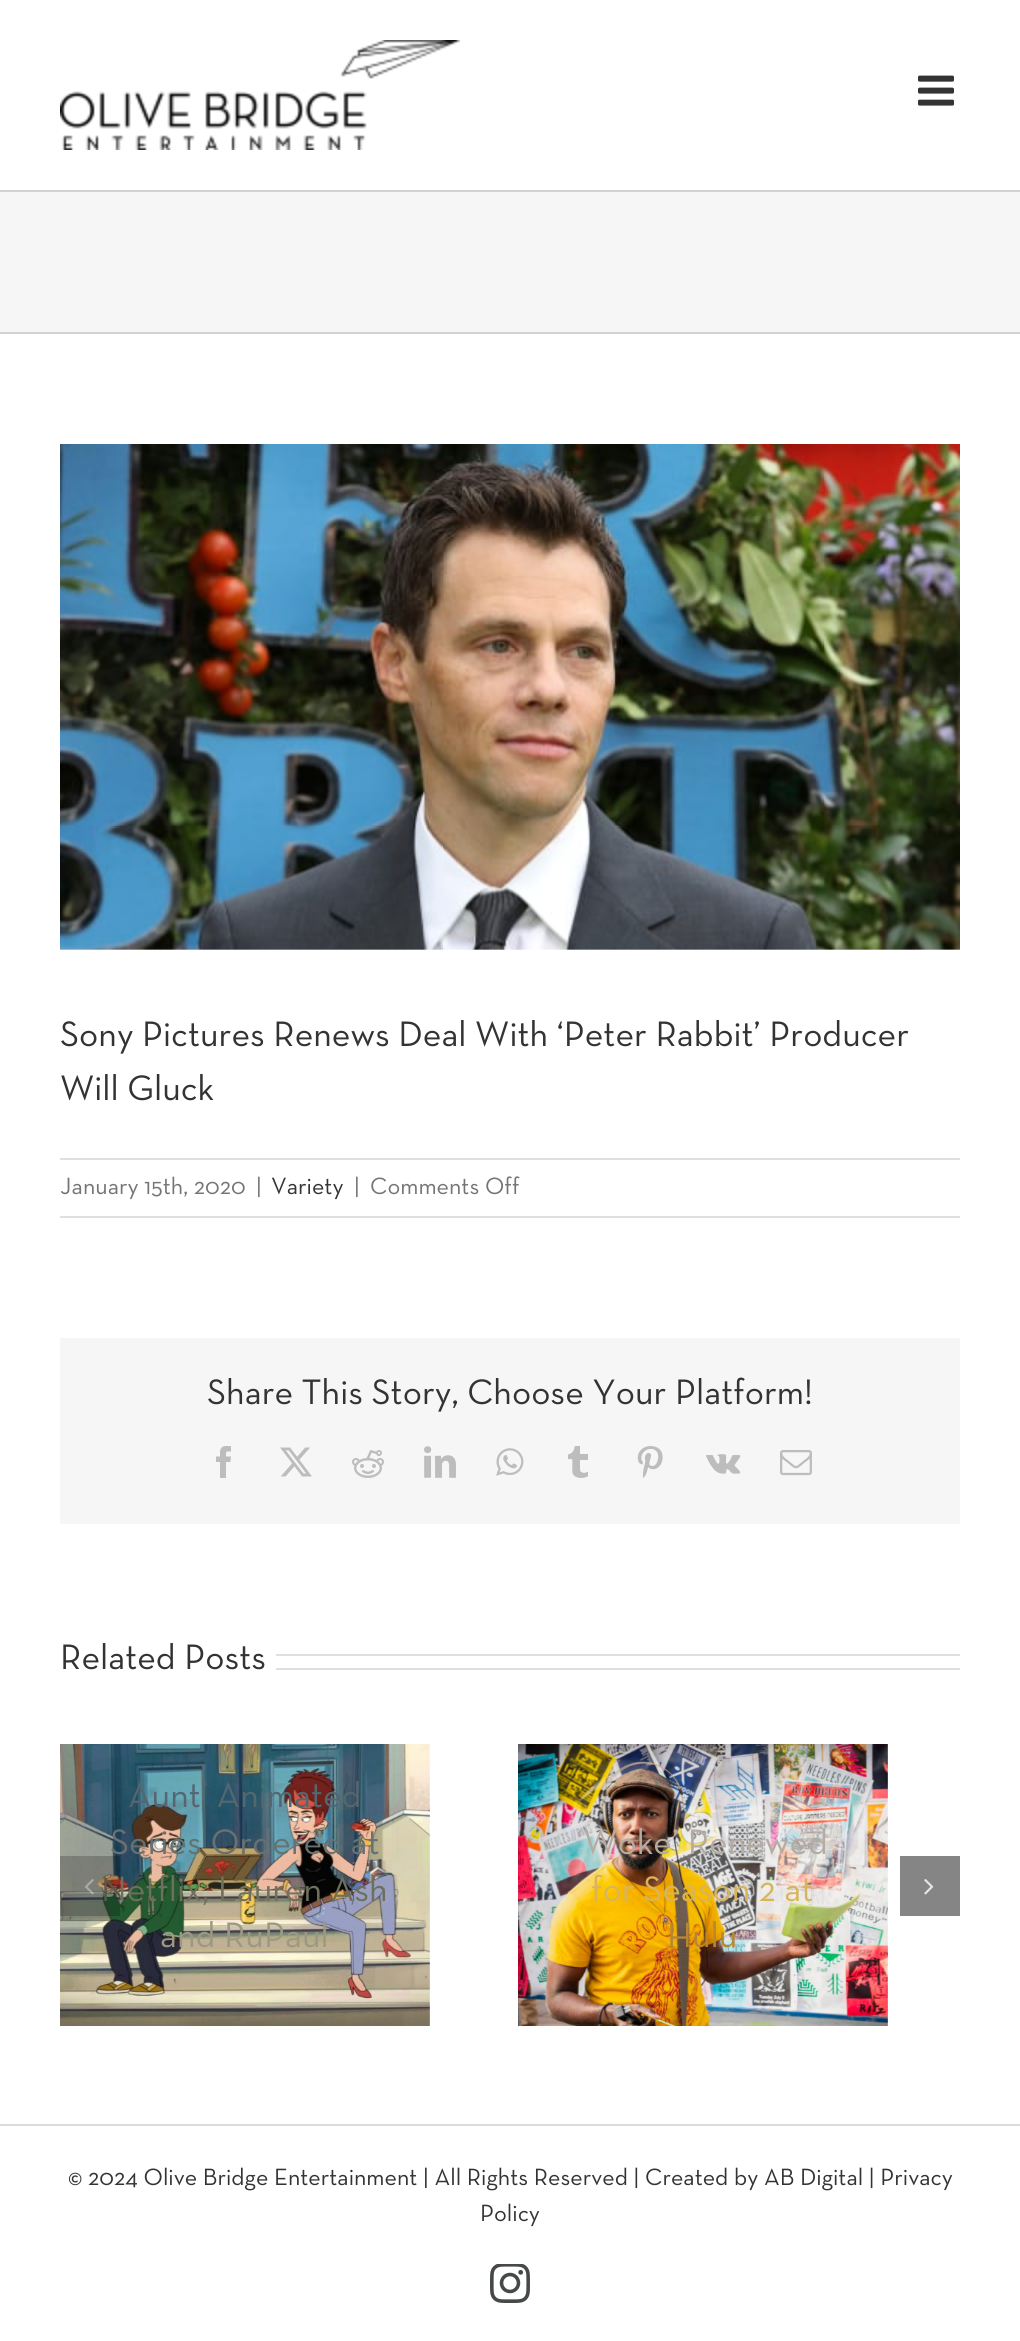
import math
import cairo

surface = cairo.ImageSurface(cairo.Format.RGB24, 1020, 2341)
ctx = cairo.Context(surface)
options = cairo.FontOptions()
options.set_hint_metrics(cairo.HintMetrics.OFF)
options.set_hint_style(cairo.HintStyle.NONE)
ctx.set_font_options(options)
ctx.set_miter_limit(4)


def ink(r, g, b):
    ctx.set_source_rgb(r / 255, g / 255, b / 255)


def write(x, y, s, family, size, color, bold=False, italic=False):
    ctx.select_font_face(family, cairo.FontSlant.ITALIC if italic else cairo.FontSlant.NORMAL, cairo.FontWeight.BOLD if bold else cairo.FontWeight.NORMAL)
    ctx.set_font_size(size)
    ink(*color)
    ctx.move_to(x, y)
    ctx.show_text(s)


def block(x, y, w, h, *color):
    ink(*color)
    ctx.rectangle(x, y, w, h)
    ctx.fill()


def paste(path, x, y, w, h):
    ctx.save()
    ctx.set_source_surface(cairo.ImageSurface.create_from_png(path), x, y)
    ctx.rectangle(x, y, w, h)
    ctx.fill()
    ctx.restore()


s1 = dict(family="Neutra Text", size=36, color=(51, 51, 51))
s2 = dict(family="Neutra Text", size=24, color=(116, 116, 116))
s3 = dict(family="Neutra Text", size=24, color=(51, 51, 51))
s4 = dict(family="Neutra Text", size=36, color=(111, 112, 92))
s5 = dict(family="Neutra Text", size=36, color=(84, 102, 112))
s6 = dict(family="Neutra Text", size=36, color=(102, 113, 114))
s7 = dict(family="Neutra Text", size=36, color=(156, 152, 131))
s8 = dict(family="Neutra Text", size=36, color=(181, 171, 163))
s9 = dict(family="Neutra Text", size=36, color=(216, 181, 91))
s10 = dict(family="Neutra Text", size=36, color=(182, 136, 51))

ink(255, 255, 255)
ctx.paint()
paste("pic1.png", 60, 40, 400, 110)
paste("pic2.png", 918, 75, 36, 31)
block(0, 192, 1020, 140, 246, 246, 246)
block(0, 190, 1020, 2, 210, 211, 212)
block(0, 332, 1020, 2, 210, 211, 212)
paste("pic3.png", 60, 444, 900, 506)
write(60, 1046, "Sony Pictures Renews Deal With ‘Peter Rabbit’ Producer", **s1)
write(60, 1100, "Will Gluck", **s1)
block(60, 1158, 900, 2, 224, 222, 222)
block(60, 1216, 900, 2, 224, 222, 222)
write(60, 1194, "January 15th, 2020", **s2)
write(256, 1194, "|", **s2)
write(271, 1194, "Variety", **s3)
write(354, 1194, "|", **s2)
write(370, 1194, "Comments Off", **s2)
block(60, 1338, 900, 186, 246, 246, 246)
write(207, 1404, "Share This Story, Choose Your Platform!", **s1)
paste("pic4.png", 216, 1446, 15, 32)
paste("pic5.png", 280, 1447, 32, 30)
paste("pic6.png", 352, 1450, 32, 28)
paste("pic7.png", 424, 1446, 32, 32)
paste("pic8.png", 496, 1448, 28, 28)
paste("pic9.png", 568, 1446, 20, 32)
paste("pic10.png", 637, 1446, 26, 32)
paste("pic11.png", 706, 1454, 35, 20)
paste("pic12.png", 780, 1450, 32, 26)
write(60, 1669, "Related Posts", **s1)
block(276, 1654, 684, 2, 224, 222, 222)
block(276, 1668, 684, 2, 224, 222, 222)
paste("pic14.png", 60, 1744, 370, 282)
write(101, 1901, "Netflix, Lauren Ash", **s4)
ctx.set_source_rgba(0, 0, 0, 0.21)
ctx.rectangle(60, 1856, 60, 60)
ctx.fill()
paste("pic13.png", 84, 1879, 10, 16)
write(128, 1807, "Aunt’ Animated", **s5)
write(110, 1854, "Series Ordered at", **s6)
write(160, 1947, "and RuPaul", **s7)
paste("pic15.png", 518, 1744, 370, 282)
write(576, 1854, "‘Woke’ Renewed", **s8)
write(591, 1901, "for Season 2 at", **s9)
write(667, 1947, "Hulu", **s10)
block(900, 1856, 60, 60, 133, 133, 133)
paste("pic16.png", 924, 1879, 10, 16)
block(0, 2124, 1020, 2, 219, 219, 219)
write(68, 2185, "© 2024 Olive Bridge Entertainment | All Rights Reserved | Created by AB Digital | Privacy", **s3)
write(480, 2221, "Policy", **s3)
paste("pic17.png", 490, 2264, 40, 39)
surface.write_to_png("screenshot.png")
